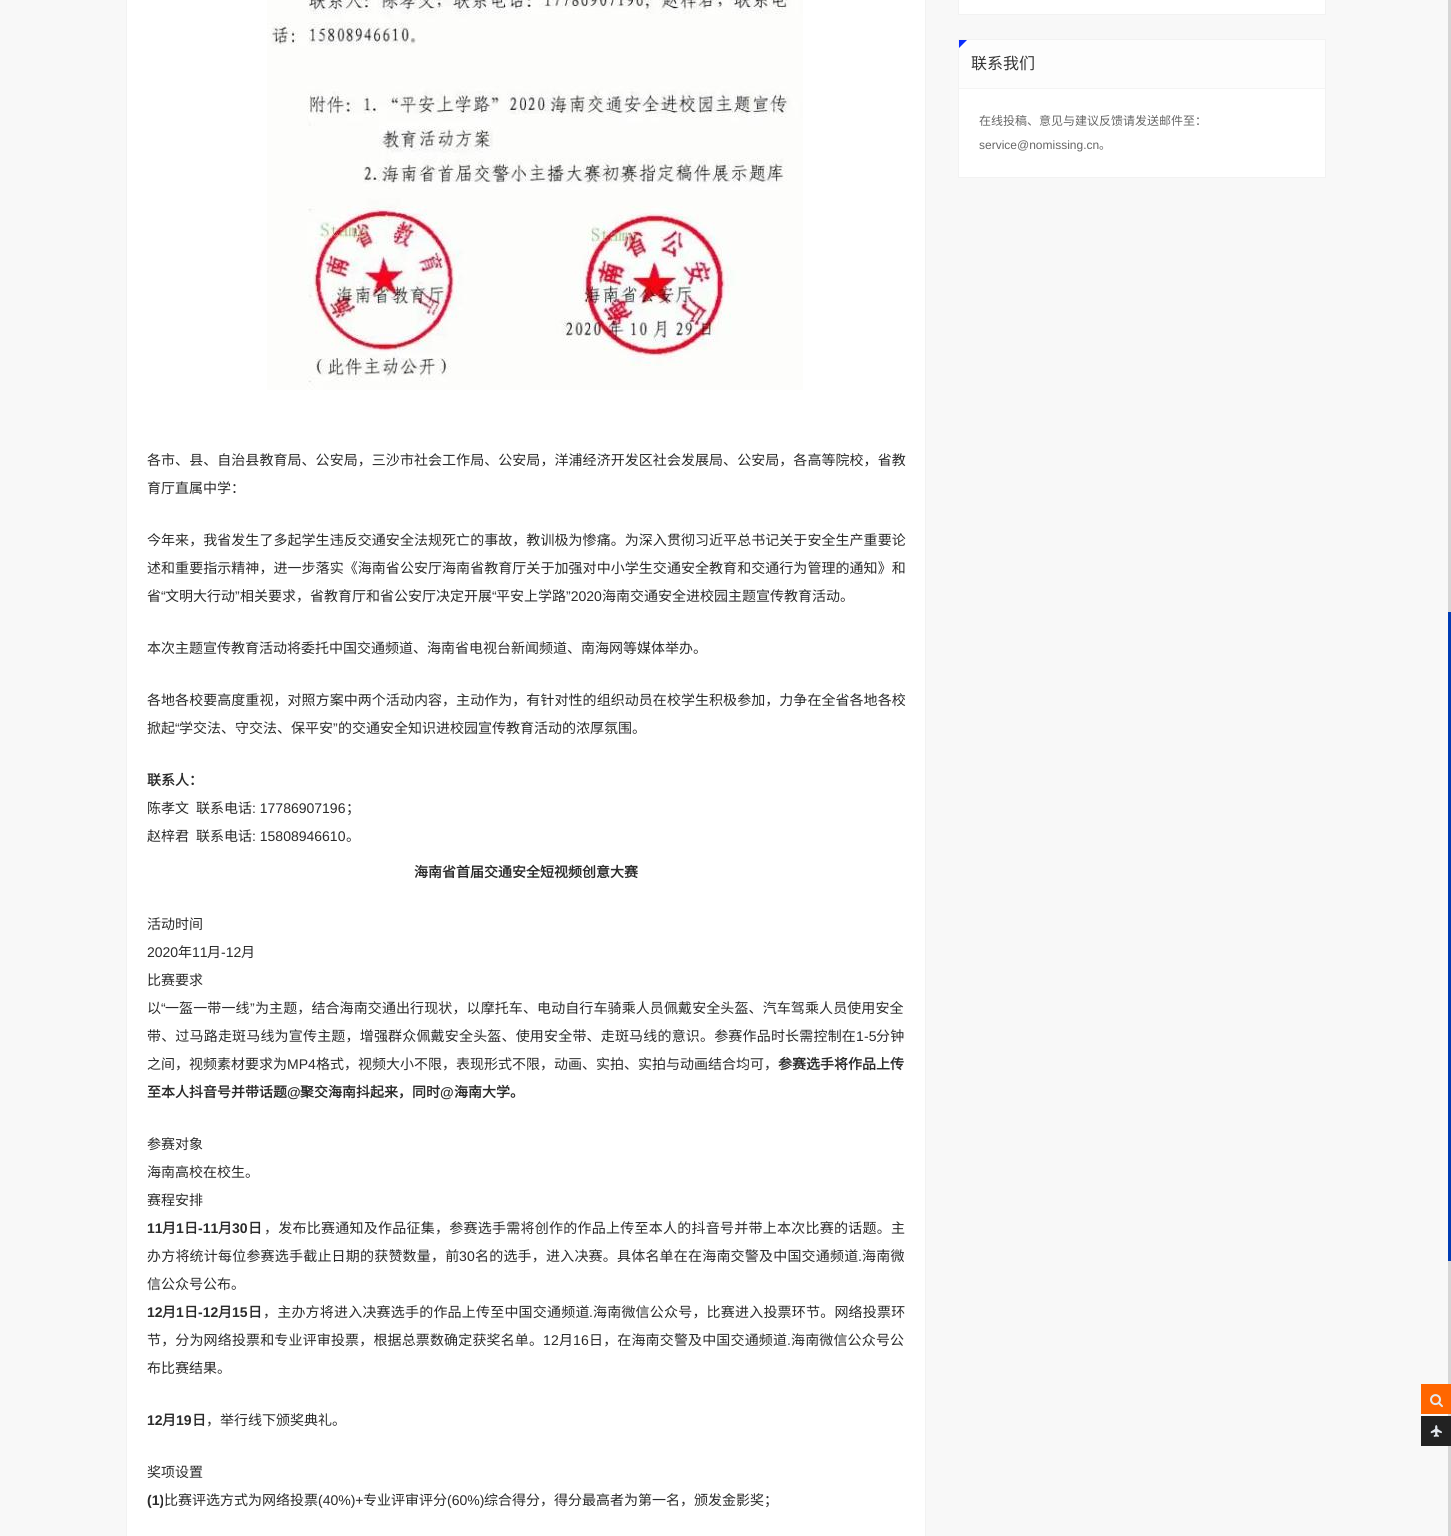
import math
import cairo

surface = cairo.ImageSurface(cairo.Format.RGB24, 1451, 1536)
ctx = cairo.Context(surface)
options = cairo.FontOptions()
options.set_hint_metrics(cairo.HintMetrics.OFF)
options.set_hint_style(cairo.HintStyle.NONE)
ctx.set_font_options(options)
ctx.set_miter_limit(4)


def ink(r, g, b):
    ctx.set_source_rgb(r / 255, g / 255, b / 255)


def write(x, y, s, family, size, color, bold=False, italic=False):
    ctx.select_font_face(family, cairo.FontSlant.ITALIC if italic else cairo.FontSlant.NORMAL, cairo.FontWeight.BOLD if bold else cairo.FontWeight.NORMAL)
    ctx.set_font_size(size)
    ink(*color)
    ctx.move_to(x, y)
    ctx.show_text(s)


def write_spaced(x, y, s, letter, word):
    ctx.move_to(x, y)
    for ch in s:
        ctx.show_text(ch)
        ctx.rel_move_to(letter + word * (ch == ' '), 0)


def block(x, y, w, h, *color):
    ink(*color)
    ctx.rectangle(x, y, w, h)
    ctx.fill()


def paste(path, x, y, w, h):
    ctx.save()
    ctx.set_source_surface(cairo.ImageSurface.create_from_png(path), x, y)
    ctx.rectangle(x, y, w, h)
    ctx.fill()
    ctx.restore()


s1 = dict(family="Noto Sans CJK SC", size=16, color=(51, 51, 51))
s2 = dict(family="Noto Sans CJK SC", size=12, color=(102, 102, 102))
s3 = dict(family="Liberation Sans", size=12, color=(102, 102, 102))
s4 = dict(family="Noto Sans CJK SC", size=14, color=(43, 43, 43))
s5 = dict(family="Liberation Sans", size=14, color=(43, 43, 43))
s6 = dict(family="Noto Sans CJK SC", size=14, color=(43, 43, 43), bold=True)
s7 = dict(family="Liberation Sans", size=14, color=(43, 43, 43), bold=True)

ink(248, 248, 248)
ctx.paint()
ink(255, 255, 255)
ctx.rectangle(958.5, -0.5, 367, 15)
ctx.fill_preserve()
ink(242, 242, 242)
ctx.set_line_width(1)
ctx.stroke()
block(959, 89, 366, 88, 255, 255, 255)
ctx.rectangle(958.5, 39.5, 367, 138)
ink(242, 242, 242)
ctx.stroke()
block(959, 40, 366, 48, 253, 253, 253)
ink(11, 45, 252)
ctx.new_path()
ctx.move_to(959, 40)
ctx.line_to(967, 40)
ctx.line_to(959, 48)
ctx.close_path()
ctx.fill()
block(959, 88, 366, 1, 244, 244, 244)
write(971, 69, "联系我们", **s1)
write(979, 125, "在线投稿、意见与建议反馈请发送邮件至：", **s2)
write(979, 149, "service@nomissing.cn", **s3)
write(1099, 149, "。", **s2)
ink(255, 255, 255)
ctx.rectangle(126.5, -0.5, 799, 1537)
ctx.fill_preserve()
ink(242, 242, 242)
ctx.stroke()
paste("pic1.png", 267, 0, 536, 390)
ctx.set_font_size(14)
ink(43, 43, 43)
write_spaced(147, 465, "各市、县、自治县教育局、公安局，三沙市社会工作局、公安局，洋浦经济开发区社会发展局、公安局，各高等院校，省教", 0.05, 0)
write(147, 493, "育厅直属中学：", **s4)
write_spaced(147, 545, "今年来，我省发生了多起学生违反交通安全法规死亡的事故，教训极为惨痛。为深入贯彻习近平总书记关于安全生产重要论", 0.05, 0)
write_spaced(147, 573, "述和重要指示精神，进一步落实《海南省公安厅海南省教育厅关于加强对中小学生交通安全教育和交通行为管理的通知》和", 0.05, 0)
write(147, 601, "省", **s4)
write(161, 601, "“", **s5)
write(165, 601, "文明大行动", **s4)
write(235, 601, "”", **s5)
write(240, 601, "相关要求，省教育厅和省公安厅决定开展", **s4)
write(492, 601, "“", **s5)
write(496, 601, "平安上学路", **s4)
write(566, 601, "”2020", **s5)
write(602, 601, "海南交通安全进校园主题宣传教育活动。", **s4)
write(147, 653, "本次主题宣传教育活动将委托中国交通频道、海南省电视台新闻频道、南海网等媒体举办。", **s4)
write_spaced(147, 705, "各地各校要高度重视，对照方案中两个活动内容，主动作为，有针对性的组织动员在校学生积极参加，力争在全省各地各校", 0.05, 0)
write(147, 733, "掀起", **s4)
write(175, 733, "“", **s5)
write(179, 733, "学交法、守交法、保平安", **s4)
write(333, 733, "”", **s5)
write(338, 733, "的交通安全知识进校园宣传教育活动的浓厚氛围。", **s4)
write(147, 785, "联系人：", **s6)
write(147, 813, "陈孝文", **s4)
write(196, 813, "联系电话", **s4)
write(252, 813, ": 17786907196", **s5)
write(346, 813, "；", **s4)
write(147, 841, "赵梓君", **s4)
write(196, 841, "联系电话", **s4)
write(252, 841, ": 15808946610", **s5)
write(346, 841, "。", **s4)
write(414, 877, "海南省首届交通安全短视频创意大赛", **s6)
write(147, 929, "活动时间", **s4)
write(147, 957, "2020", **s5)
write(178, 957, "年", **s4)
write(192, 957, "11", **s5)
write(207, 957, "月", **s4)
write(221, 957, "-12", **s5)
write(241, 957, "月", **s4)
write(147, 985, "比赛要求", **s4)
write_spaced(147, 1013, "以", 0.1, 0)
ctx.select_font_face("Liberation Sans")
write_spaced(161, 1013, "“", 0.1, 0)
ctx.select_font_face("Noto Sans CJK SC")
write_spaced(165, 1013, "一盔一带一线", 0.1, 0)
ctx.select_font_face("Liberation Sans")
write_spaced(250, 1013, "”", 0.1, 0)
ctx.select_font_face("Noto Sans CJK SC")
write_spaced(255, 1013, "为主题，结合海南交通出行现状，以摩托车、电动自行车骑乘人员佩戴安全头盔、汽车驾乘人员使用安全", 0.1, 0)
write_spaced(147, 1041, "带、过马路走斑马线为宣传主题，增强群众佩戴安全头盔、使用安全带、走斑马线的意识。参赛作品时长需控制在", 0.18, 0)
ctx.select_font_face("Liberation Sans")
write_spaced(856, 1041, "1-5", 0.18, 0)
ctx.select_font_face("Noto Sans CJK SC")
write_spaced(876, 1041, "分钟", 0.18, 0)
write(147, 1069, "之间，视频素材要求为", **s4)
write(287, 1069, "MP4", **s5)
write(316, 1069, "格式，视频大小不限，表现形式不限，动画、实拍、实拍与动画结合均可，", **s4)
write(778, 1069, "参赛选手将作品上传", **s6)
write(147, 1097, "至本人抖音号并带话题", **s6)
write(287, 1097, "@", **s7)
write(300, 1097, "聚交海南抖起来，同时", **s6)
write(440, 1097, "@", **s7)
write(454, 1097, "海南大学。", **s6)
write(147, 1149, "参赛对象", **s4)
write(147, 1177, "海南高校在校生。", **s4)
write(147, 1205, "赛程安排", **s4)
write(147, 1233, "11", **s7)
write(162, 1233, "月", **s6)
write(176, 1233, "1", **s7)
write(184, 1233, "日", **s6)
write(198, 1233, "-11", **s7)
write(218, 1233, "月", **s6)
write(232, 1233, "30", **s7)
write(248, 1233, "日", **s6)
ctx.select_font_face("Noto Sans CJK SC")
write_spaced(264, 1233, "，发布比赛通知及作品征集，参赛选手需将创作的作品上传至本人的抖音号并带上本次比赛的话题。主", 0.25, 0)
write_spaced(147, 1261, "办方将统计每位参赛选手截止日期的获赞数量，前", 0.2, 0)
ctx.select_font_face("Liberation Sans")
write_spaced(459, 1261, "30", 0.2, 0)
ctx.select_font_face("Noto Sans CJK SC")
write_spaced(475, 1261, "名的选手，进入决赛。具体名单在在海南交警及中国交通频道", 0.2, 0)
ctx.select_font_face("Liberation Sans")
write_spaced(858, 1261, ".", 0.2, 0)
ctx.select_font_face("Noto Sans CJK SC")
write_spaced(862, 1261, "海南微", 0.2, 0)
write(147, 1289, "信公众号公布。", **s4)
write(147, 1317, "12", **s7)
write(162, 1317, "月", **s6)
write(176, 1317, "1", **s7)
write(184, 1317, "日", **s6)
write(198, 1317, "-12", **s7)
write(218, 1317, "月", **s6)
write(232, 1317, "15", **s7)
write(248, 1317, "日", **s6)
ctx.select_font_face("Noto Sans CJK SC")
write_spaced(263, 1317, "，主办方将进入决赛选手的作品上传至中国交通频道", 0.2, 0)
ctx.select_font_face("Liberation Sans")
write_spaced(589, 1317, ".", 0.2, 0)
ctx.select_font_face("Noto Sans CJK SC")
write_spaced(593, 1317, "海南微信公众号，比赛进入投票环节。网络投票环", 0.2, 0)
write_spaced(147, 1345, "节，分为网络投票和专业评审投票，根据总票数确定获奖名单。", 0.15, 0)
ctx.select_font_face("Liberation Sans")
write_spaced(543, 1345, "12", 0.15, 0)
ctx.select_font_face("Noto Sans CJK SC")
write_spaced(559, 1345, "月", 0.15, 0)
ctx.select_font_face("Liberation Sans")
write_spaced(573, 1345, "16", 0.15, 0)
ctx.select_font_face("Noto Sans CJK SC")
write_spaced(589, 1345, "日，在海南交警及中国交通频道", 0.15, 0)
ctx.select_font_face("Liberation Sans")
write_spaced(787, 1345, ".", 0.15, 0)
ctx.select_font_face("Noto Sans CJK SC")
write_spaced(791, 1345, "海南微信公众号公", 0.15, 0)
write(147, 1373, "布比赛结果。", **s4)
write(147, 1425, "12", **s7)
write(162, 1425, "月", **s6)
write(176, 1425, "19", **s7)
write(192, 1425, "日", **s6)
write(206, 1425, "，举行线下颁奖典礼。", **s4)
write(147, 1477, "奖项设置", **s4)
write(147, 1505, "(1)", **s7)
write(164, 1505, "比赛评选方式为网络投票", **s4)
write(318, 1505, "(40%)+", **s5)
write(363, 1505, "专业评审评分", **s4)
write(447, 1505, "(60%)", **s5)
write(484, 1505, "综合得分，得分最高者为第一名，颁发金影奖；", **s4)
block(1448, 0, 3, 1536, 214, 214, 214)
block(1448, 612, 3, 649, 0, 60, 180)
block(1421, 1384, 30, 30, 255, 102, 0)
paste("pic2.png", 1430, 1394, 13, 14)
block(1421, 1416, 30, 30, 34, 34, 34)
paste("pic3.png", 1430, 1425, 12, 12)
surface.write_to_png("screenshot.png")
